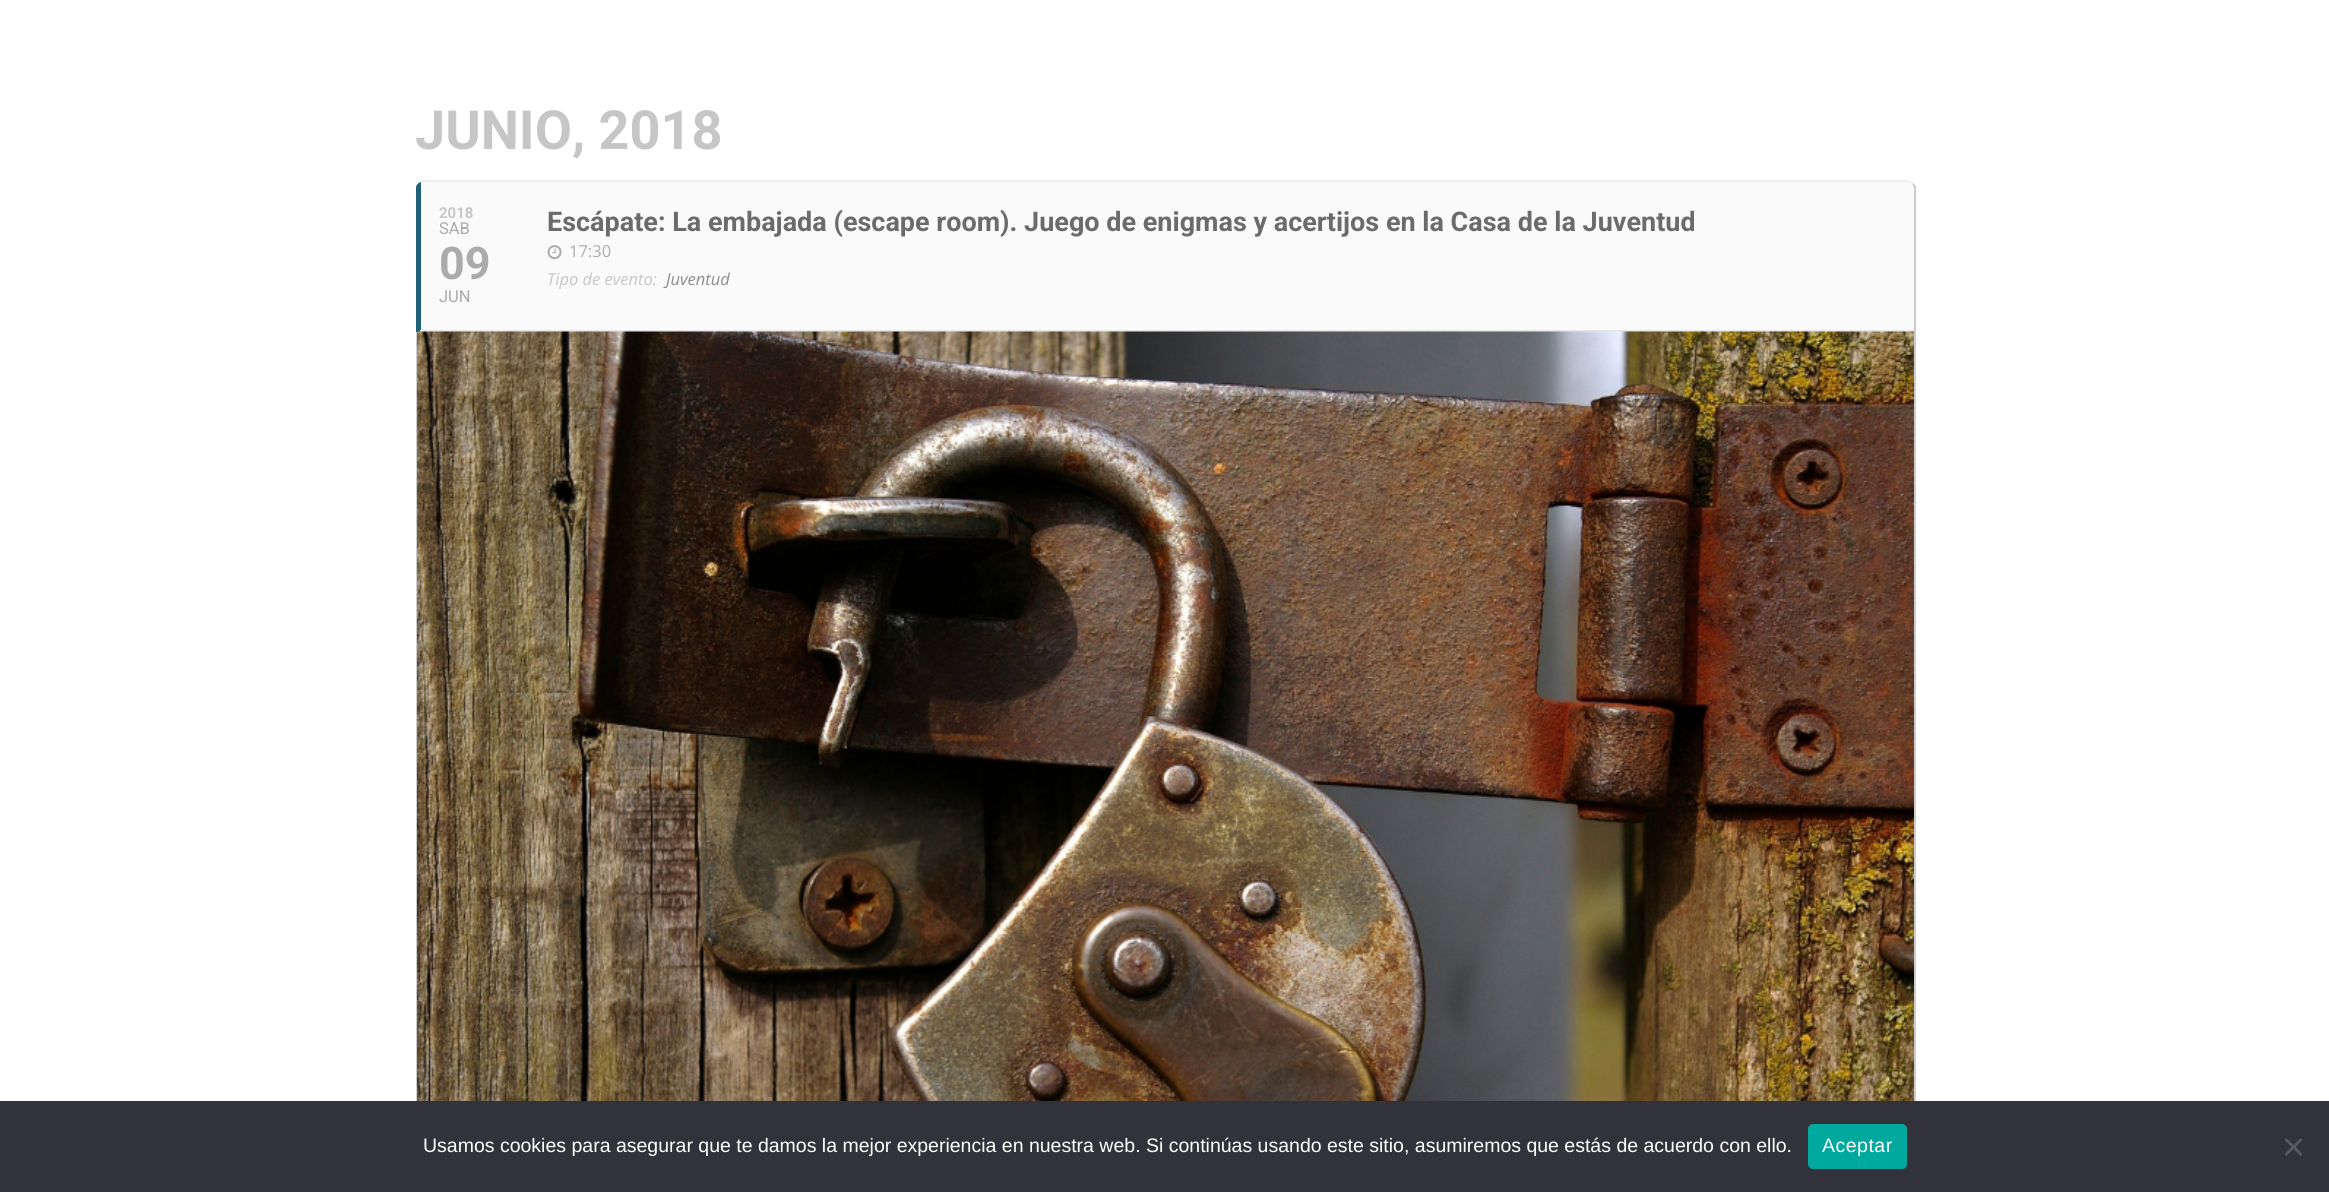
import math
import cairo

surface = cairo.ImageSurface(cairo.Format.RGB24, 2329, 1192)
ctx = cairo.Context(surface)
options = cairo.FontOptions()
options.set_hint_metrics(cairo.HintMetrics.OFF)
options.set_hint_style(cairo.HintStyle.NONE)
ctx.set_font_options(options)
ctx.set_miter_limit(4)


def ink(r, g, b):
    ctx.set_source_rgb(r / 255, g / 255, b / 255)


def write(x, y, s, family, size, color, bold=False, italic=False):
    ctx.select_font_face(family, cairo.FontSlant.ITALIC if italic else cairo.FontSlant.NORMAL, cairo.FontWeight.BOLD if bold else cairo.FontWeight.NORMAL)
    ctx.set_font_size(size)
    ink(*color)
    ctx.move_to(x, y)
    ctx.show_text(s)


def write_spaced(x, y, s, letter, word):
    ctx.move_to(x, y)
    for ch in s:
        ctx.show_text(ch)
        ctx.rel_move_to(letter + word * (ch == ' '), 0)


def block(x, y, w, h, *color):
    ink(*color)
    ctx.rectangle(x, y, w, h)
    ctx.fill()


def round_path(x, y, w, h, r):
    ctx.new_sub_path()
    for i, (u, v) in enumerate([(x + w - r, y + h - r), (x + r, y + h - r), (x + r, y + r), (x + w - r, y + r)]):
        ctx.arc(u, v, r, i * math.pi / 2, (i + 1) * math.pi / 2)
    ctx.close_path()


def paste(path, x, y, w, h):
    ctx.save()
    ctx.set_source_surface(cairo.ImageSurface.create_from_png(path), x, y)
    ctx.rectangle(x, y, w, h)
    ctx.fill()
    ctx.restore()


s1 = dict(family="Roboto", size=54, color=(198, 198, 198), bold=True)
s2 = dict(family="Roboto", size=15, color=(198, 198, 198), bold=True)
s3 = dict(family="Roboto", size=16.5, color=(171, 171, 171))
s4 = dict(family="Roboto", size=45, color=(171, 171, 171), bold=True)
s5 = dict(family="Roboto", size=27, color=(107, 107, 107), bold=True)
s6 = dict(family="Open Sans", size=16.5, color=(171, 171, 171))
s7 = dict(family="Open Sans", size=16.5, color=(198, 198, 198), italic=True)
s8 = dict(family="Open Sans", size=16.5, color=(140, 140, 140), italic=True)
s9 = dict(family="Liberation Sans", size=19.5, color=(255, 255, 255))

ink(255, 255, 255)
ctx.paint()
write(415, 149, "JUNIO, 2018", **s1)
ink(239, 238, 238)
ctx.new_path()
ctx.move_to(424, 180)
ctx.line_to(1906, 180)
ctx.curve_to(1908, 180, 1911, 181, 1913, 183)
ctx.line_to(1912, 184)
ctx.curve_to(1910, 183, 1908, 182, 1906, 182)
ctx.line_to(424, 182)
ctx.curve_to(420, 182, 416, 185, 416, 189)
ctx.curve_to(416, 184, 420, 180, 424, 180)
ctx.close_path()
ctx.fill()
ink(205, 205, 205)
ctx.new_path()
ctx.move_to(1913, 183)
ctx.line_to(1912, 184)
ctx.curve_to(1913, 185, 1914, 187, 1914, 189)
ctx.line_to(1914, 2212)
ctx.curve_to(1914, 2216, 1912, 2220, 1909, 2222)
ctx.curve_to(1911, 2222, 1915, 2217, 1916, 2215)
ctx.line_to(1916, 186)
ctx.close_path()
ctx.fill()
ink(250, 250, 250)
ctx.new_path()
ctx.move_to(416, 188)
ctx.line_to(416, 186)
ctx.curve_to(417, 184, 419, 183, 421, 182)
ctx.line_to(1909, 182)
ctx.curve_to(1912, 183, 1914, 186, 1914, 189)
ctx.line_to(1914, 332)
ctx.line_to(416, 332)
ctx.close_path()
ctx.fill()
ink(32, 97, 119)
ctx.new_path()
ctx.move_to(416, 188)
ctx.curve_to(416, 185, 418, 183, 421, 182)
ctx.line_to(421, 332)
ctx.line_to(416, 332)
ctx.close_path()
ctx.fill()
write(439, 218, "2018", **s2)
write(439, 234, "SAB", **s3)
write(439, 279, "09", **s4)
write(439, 302, "JUN", **s3)
write(547, 231, "Escápate: La embajada (escape room). Juego de enigmas y acertijos en la Casa de la Juventud", **s5)
paste("pic1.png", 547, 245, 15, 15)
write(569, 257, "17:30", **s6)
write(547, 285, "Tipo de evento:", **s7)
write(666, 285, "Juventud", **s8)
block(420, 330, 1494, 2, 229, 229, 229)
ink(205, 205, 205)
ctx.new_path()
ctx.move_to(416, 332)
ctx.line_to(418, 332)
ctx.line_to(418, 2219)
ctx.curve_to(417, 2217, 416, 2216, 416, 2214)
ctx.close_path()
ctx.fill()
paste("pic2.png", 417, 331, 1497, 770)
block(0, 1101, 2329, 91, 50, 50, 58)
write(423, 1152, "Usamos cookies para asegurar que te damos la mejor experiencia en nuestra web. Si continúas usando este sitio, asumiremos que estás de acuerdo con ello.", **s9)
ink(0, 169, 157)
round_path(1808, 1124, 99, 45, 5)
ctx.fill()
ink(255, 255, 255)
write_spaced(1822, 1152, "Aceptar", 0.5, 0)
ink(89, 89, 93)
ctx.new_path()
ctx.move_to(2300.5, 1138)
ctx.line_to(2302.5, 1140)
ctx.line_to(2286.5, 1156)
ctx.line_to(2284.5, 1154)
ctx.close_path()
ctx.fill()
ctx.new_path()
ctx.move_to(2284.5, 1140)
ctx.line_to(2286.5, 1138)
ctx.line_to(2302.5, 1154)
ctx.line_to(2300.5, 1156)
ctx.close_path()
ctx.fill()
surface.write_to_png("screenshot.png")
